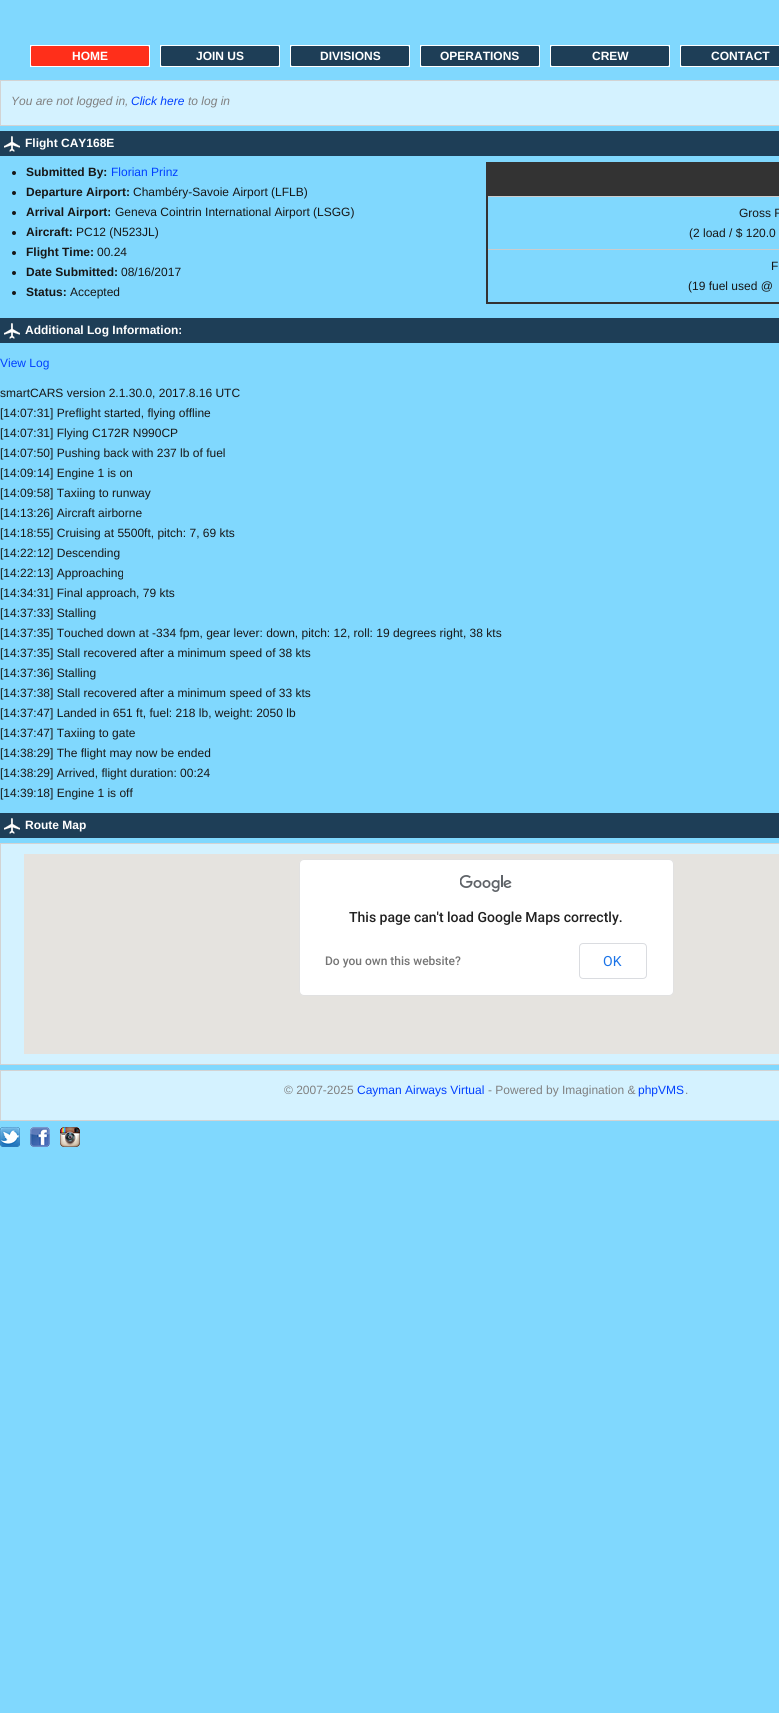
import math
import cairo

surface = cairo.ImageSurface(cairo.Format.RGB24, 779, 1713)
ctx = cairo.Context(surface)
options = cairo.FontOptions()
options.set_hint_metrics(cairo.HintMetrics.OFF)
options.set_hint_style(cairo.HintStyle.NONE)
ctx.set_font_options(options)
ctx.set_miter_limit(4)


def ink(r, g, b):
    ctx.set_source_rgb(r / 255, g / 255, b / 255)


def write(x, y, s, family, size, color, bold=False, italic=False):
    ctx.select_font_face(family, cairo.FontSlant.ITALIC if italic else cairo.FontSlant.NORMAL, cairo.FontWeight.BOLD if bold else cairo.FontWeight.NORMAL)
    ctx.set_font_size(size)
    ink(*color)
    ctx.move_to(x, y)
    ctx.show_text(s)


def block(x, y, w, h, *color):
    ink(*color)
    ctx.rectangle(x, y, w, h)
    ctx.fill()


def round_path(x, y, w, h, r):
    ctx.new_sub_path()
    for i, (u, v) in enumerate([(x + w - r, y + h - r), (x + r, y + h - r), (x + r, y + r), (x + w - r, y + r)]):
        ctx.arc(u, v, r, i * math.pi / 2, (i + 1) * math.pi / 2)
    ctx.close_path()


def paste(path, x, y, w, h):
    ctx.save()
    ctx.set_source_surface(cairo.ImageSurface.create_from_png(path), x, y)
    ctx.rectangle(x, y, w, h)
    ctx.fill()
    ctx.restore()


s1 = dict(family="Liberation Sans", size=12, color=(255, 255, 255), bold=True)
s2 = dict(family="Liberation Sans", size=12, color=(128, 128, 128), italic=True)
s3 = dict(family="Liberation Sans", size=12, color=(0, 64, 255), italic=True)
s4 = dict(family="Liberation Sans", size=12, color=(23, 23, 23), bold=True)
s5 = dict(family="Liberation Sans", size=12, color=(0, 64, 255))
s6 = dict(family="Liberation Sans", size=12, color=(23, 23, 23))
s7 = dict(family="Roboto Medium", size=14, color=(33, 33, 33))
s8 = dict(family="Roboto Medium", size=12, color=(117, 117, 117))
s9 = dict(family="Roboto", size=14, color=(26, 115, 232))
s10 = dict(family="Liberation Sans", size=12, color=(128, 128, 128))

ink(128, 216, 254)
ctx.paint()
ink(255, 47, 26)
round_path(30, 45, 120, 22, 5)
ctx.fill()
ctx.rectangle(30.5, 45.5, 119, 21)
ink(255, 255, 255)
ctx.set_line_width(1)
ctx.stroke()
write(72, 60, "HOME", **s1)
ink(30, 62, 87)
round_path(160, 45, 120, 22, 5)
ctx.fill()
ctx.rectangle(160.5, 45.5, 119, 21)
ink(255, 255, 255)
ctx.stroke()
write(196, 60, "JOIN US", **s1)
ink(30, 62, 87)
round_path(290, 45, 120, 22, 5)
ctx.fill()
ctx.rectangle(290.5, 45.5, 119, 21)
ink(255, 255, 255)
ctx.stroke()
write(320, 60, "DIVISIONS", **s1)
ink(30, 62, 87)
round_path(420, 45, 120, 22, 5)
ctx.fill()
ctx.rectangle(420.5, 45.5, 119, 21)
ink(255, 255, 255)
ctx.stroke()
write(440, 60, "OPERATIONS", **s1)
ink(30, 62, 87)
round_path(550, 45, 120, 22, 5)
ctx.fill()
ctx.rectangle(550.5, 45.5, 119, 21)
ink(255, 255, 255)
ctx.stroke()
write(592, 60, "CREW", **s1)
ink(30, 62, 87)
round_path(680, 45, 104, 22, 5)
ctx.fill()
ctx.rectangle(680.5, 45.5, 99, 21)
ink(255, 255, 255)
ctx.stroke()
write(711, 60, "CONTACT", **s1)
ink(212, 242, 255)
ctx.rectangle(0.5, 80.5, 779, 45)
ctx.fill_preserve()
ink(211, 211, 211)
ctx.stroke()
write(11, 105, "You are not logged in,", **s2)
write(131, 105, "Click here", **s3)
write(188, 105, "to log in", **s2)
block(0, 131, 779, 25, 30, 62, 87)
paste("pic1.png", 4, 136, 16, 16)
write(25, 147, "Flight CAY168E", **s1)
ink(23, 23, 23)
ctx.new_path()
ctx.arc(14, 173, 2, 0, 2 * math.pi)
ctx.fill()
write(26, 176, "Submitted By:", **s4)
write(111, 176, "Florian Prinz", **s5)
ink(23, 23, 23)
ctx.new_path()
ctx.arc(14, 193, 2, 0, 2 * math.pi)
ctx.fill()
write(26, 196, "Departure Airport:", **s4)
write(133, 196, "Chambéry-Savoie Airport (LFLB)", **s6)
ctx.new_path()
ctx.arc(14, 213, 2, 0, 2 * math.pi)
ctx.fill()
write(26, 216, "Arrival Airport:", **s4)
write(115, 216, "Geneva Cointrin International Airport (LSGG)", **s6)
ctx.new_path()
ctx.arc(14, 233, 2, 0, 2 * math.pi)
ctx.fill()
write(26, 236, "Aircraft:", **s4)
write(76, 236, "PC12 (N523JL)", **s6)
ctx.new_path()
ctx.arc(14, 253, 2, 0, 2 * math.pi)
ctx.fill()
write(26, 256, "Flight Time:", **s4)
write(97, 256, "00.24", **s6)
ctx.new_path()
ctx.arc(14, 273, 2, 0, 2 * math.pi)
ctx.fill()
write(26, 276, "Date Submitted:", **s4)
write(121, 276, "08/16/2017", **s6)
ctx.new_path()
ctx.arc(14, 293, 2, 0, 2 * math.pi)
ctx.fill()
write(26, 296, "Status:", **s4)
write(70, 296, "Accepted", **s6)
block(486, 162, 293, 2, 51, 51, 51)
block(486, 302, 293, 2, 51, 51, 51)
block(487, 196, 292, 1, 204, 204, 204)
block(487, 249, 292, 1, 204, 204, 204)
block(486, 162, 2, 142, 51, 51, 51)
block(488, 164, 291, 32, 51, 51, 51)
write(739, 217, "Gross R", **s6)
write(689, 237, "(2 load / $ 120.0", **s6)
write(771, 270, "F", **s6)
write(688, 290, "(19 fuel used @", **s6)
block(0, 318, 779, 25, 30, 62, 87)
paste("pic1.png", 4, 323, 16, 16)
write(25, 334, "Additional Log Information:", **s1)
write(0, 367, "View Log", **s5)
write(0, 397, "smartCARS version 2.1.30.0, 2017.8.16 UTC", **s6)
write(0, 417, "[14:07:31] Preflight started, flying offline", **s6)
write(0, 437, "[14:07:31] Flying C172R N990CP", **s6)
write(0, 457, "[14:07:50] Pushing back with 237 lb of fuel", **s6)
write(0, 477, "[14:09:14] Engine 1 is on", **s6)
write(0, 497, "[14:09:58] Taxiing to runway", **s6)
write(0, 517, "[14:13:26] Aircraft airborne", **s6)
write(0, 537, "[14:18:55] Cruising at 5500ft, pitch: 7, 69 kts", **s6)
write(0, 557, "[14:22:12] Descending", **s6)
write(0, 577, "[14:22:13] Approaching", **s6)
write(0, 597, "[14:34:31] Final approach, 79 kts", **s6)
write(0, 617, "[14:37:33] Stalling", **s6)
write(0, 637, "[14:37:35] Touched down at -334 fpm, gear lever: down, pitch: 12, roll: 19 degrees right, 38 kts", **s6)
write(0, 657, "[14:37:35] Stall recovered after a minimum speed of 38 kts", **s6)
write(0, 677, "[14:37:36] Stalling", **s6)
write(0, 697, "[14:37:38] Stall recovered after a minimum speed of 33 kts", **s6)
write(0, 717, "[14:37:47] Landed in 651 ft, fuel: 218 lb, weight: 2050 lb", **s6)
write(0, 737, "[14:37:47] Taxiing to gate", **s6)
write(0, 757, "[14:38:29] The flight may now be ended", **s6)
write(0, 777, "[14:38:29] Arrived, flight duration: 00:24", **s6)
write(0, 797, "[14:39:18] Engine 1 is off", **s6)
block(0, 813, 779, 25, 30, 62, 87)
paste("pic1.png", 4, 818, 16, 16)
write(25, 829, "Route Map", **s1)
ink(212, 242, 255)
ctx.rectangle(0.5, 843.5, 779, 221)
ctx.fill_preserve()
ink(211, 211, 211)
ctx.stroke()
block(24, 854, 755, 200, 229, 227, 223)
ink(255, 255, 255)
round_path(299, 859, 375, 137, 5)
ctx.fill()
round_path(299.5, 859.5, 374, 136, 4.5)
ctx.set_source_rgba(0, 0, 0, 0.12)
ctx.stroke()
paste("pic2.png", 460, 875, 52, 17)
write(349, 922, "This page can't load Google Maps correctly.", **s7)
write(325, 965, "Do you own this website?", **s8)
round_path(579.5, 943.5, 67, 35, 3.5)
ink(218, 220, 224)
ctx.stroke()
write(603, 966, "OK", **s9)
ink(212, 242, 255)
ctx.rectangle(0.5, 1070.5, 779, 50)
ctx.fill_preserve()
ink(211, 211, 211)
ctx.stroke()
write(284, 1094, "© 2007-2025", **s10)
write(357, 1094, "Cayman Airways Virtual", **s5)
write(488, 1094, "- Powered by Imagination &", **s10)
write(638, 1094, "phpVMS", **s5)
write(685, 1094, ".", **s10)
paste("pic3.png", 0, 1127, 20, 20)
paste("pic4.png", 30, 1127, 20, 20)
paste("pic5.png", 60, 1127, 20, 20)
surface.write_to_png("screenshot.png")
